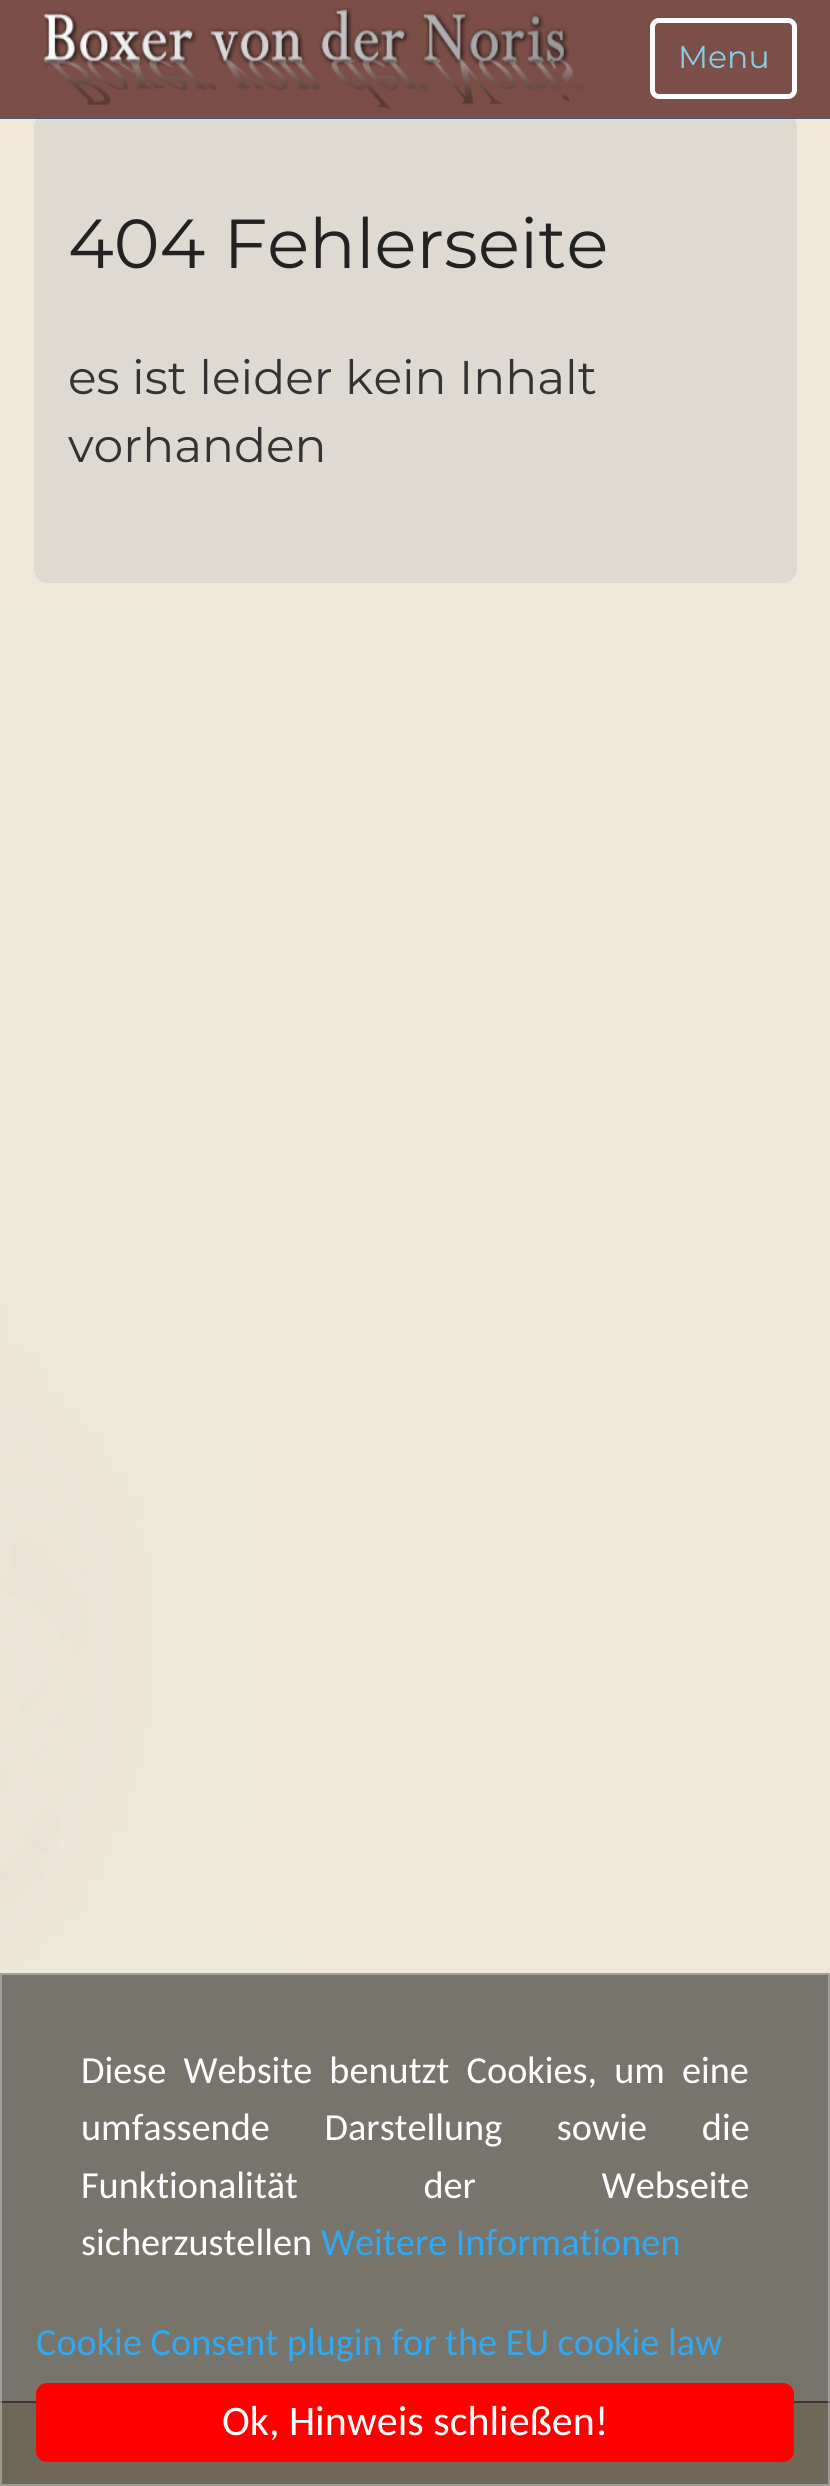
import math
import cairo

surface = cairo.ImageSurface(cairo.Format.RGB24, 830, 2486)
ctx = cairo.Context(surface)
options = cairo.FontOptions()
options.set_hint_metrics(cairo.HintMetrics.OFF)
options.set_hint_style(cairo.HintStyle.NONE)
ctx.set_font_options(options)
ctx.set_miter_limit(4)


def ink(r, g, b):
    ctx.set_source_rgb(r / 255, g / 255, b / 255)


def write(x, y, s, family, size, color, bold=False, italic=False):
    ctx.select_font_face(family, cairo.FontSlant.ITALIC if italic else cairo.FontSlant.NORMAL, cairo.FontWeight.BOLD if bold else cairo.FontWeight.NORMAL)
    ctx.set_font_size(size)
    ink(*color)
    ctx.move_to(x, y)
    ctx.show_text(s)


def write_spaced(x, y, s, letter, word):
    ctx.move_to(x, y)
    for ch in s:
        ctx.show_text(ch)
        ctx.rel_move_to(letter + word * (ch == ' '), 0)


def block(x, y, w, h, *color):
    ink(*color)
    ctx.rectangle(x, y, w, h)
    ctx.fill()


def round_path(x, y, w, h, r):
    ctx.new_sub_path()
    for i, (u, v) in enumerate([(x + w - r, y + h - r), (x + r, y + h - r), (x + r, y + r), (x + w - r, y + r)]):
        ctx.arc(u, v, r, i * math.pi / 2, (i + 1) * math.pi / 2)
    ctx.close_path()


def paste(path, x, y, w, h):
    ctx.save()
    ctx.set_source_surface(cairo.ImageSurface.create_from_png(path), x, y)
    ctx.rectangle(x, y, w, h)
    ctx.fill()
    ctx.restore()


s1 = dict(family="Montserrat", size=31.5, color=(135, 206, 235))
s2 = dict(family="Montserrat", size=69.25, color=(34, 34, 34))
s3 = dict(family="Montserrat", size=47.25, color=(51, 51, 51))
s4 = dict(family="Carlito", size=38.25, color=(255, 255, 255))
s5 = dict(family="Carlito", size=38.25, color=(49, 168, 240))
s6 = dict(family="Carlito", size=42, color=(255, 255, 255))

ink(255, 255, 255)
ctx.paint()
paste("pic2.png", 0, 119, 830, 2367)
ink(222, 218, 210)
round_path(34, 113, 763, 470, 14)
ctx.fill()
block(0, 0, 830, 117, 123, 79, 71)
block(0, 117, 830, 2, 69, 96, 118)
paste("pic1.png", 43, 7, 543, 102)
round_path(652.5, 20.5, 142, 76, 6.5)
ink(255, 255, 255)
ctx.set_line_width(5)
ctx.stroke()
write(678, 68, "Menu", **s1)
write(68, 268, "404 Fehlerseite", **s2)
write(68, 394, "es ist leider kein Inhalt", **s3)
write(68, 462, "vorhanden", **s3)
block(0, 2401, 830, 2, 132, 101, 96)
ctx.set_source_rgba(0, 0, 0, 0.5)
ctx.rectangle(0, 1973, 830, 513)
ctx.fill()
ctx.rectangle(1, 1974, 828, 511)
ctx.set_source_rgba(0.8, 0.8, 0.8, 0.5)
ctx.set_line_width(2)
ctx.stroke()
ctx.select_font_face("Carlito")
ctx.set_font_size(38.25)
ink(255, 255, 255)
write_spaced(81, 2083, "Diese Website benutzt Cookies, um eine", 0, 8.5)
write_spaced(81, 2140, "umfassende Darstellung sowie die", 0, 46)
write_spaced(81, 2198, "Funktionalität der Webseite", 0, 117)
write(81, 2255, "sicherzustellen", **s4)
write(321, 2255, "Weitere Informationen", **s5)
write(36, 2355, "Cookie Consent plugin for the EU cookie law", **s5)
ink(255, 0, 0)
round_path(36, 2383, 758, 79, 11)
ctx.fill()
write(222, 2435, "Ok, Hinweis schließen!", **s6)
surface.write_to_png("screenshot.png")
